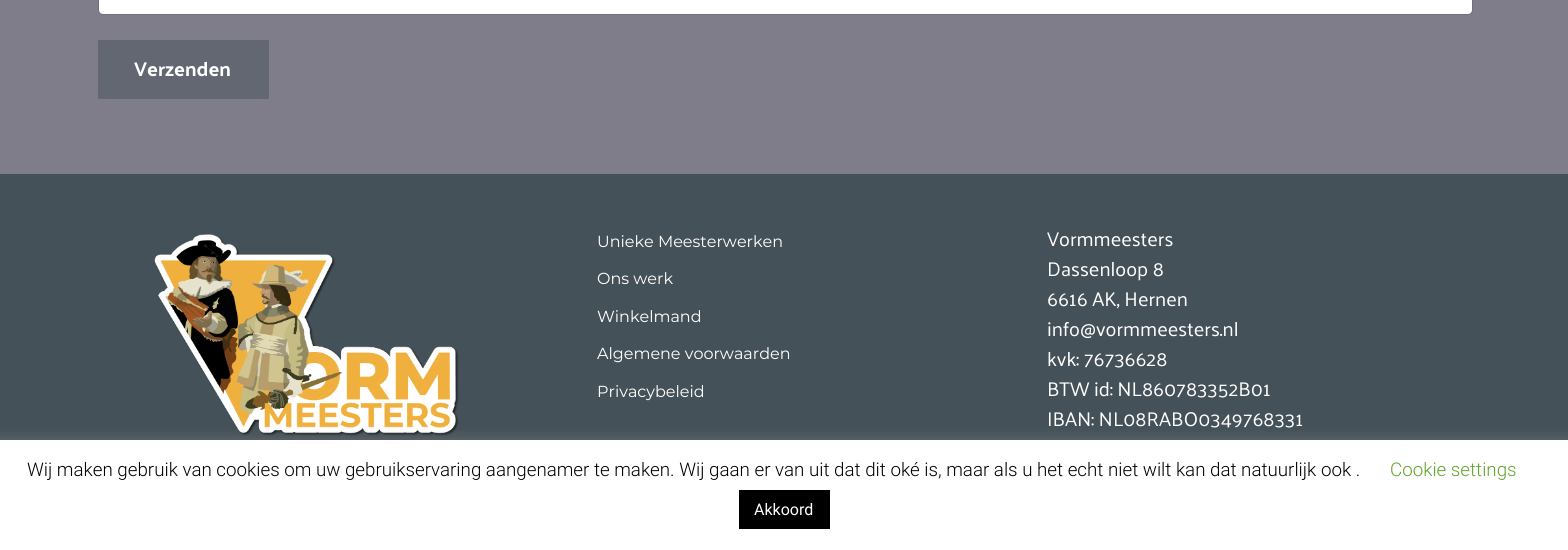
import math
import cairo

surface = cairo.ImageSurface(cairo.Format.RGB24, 1568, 550)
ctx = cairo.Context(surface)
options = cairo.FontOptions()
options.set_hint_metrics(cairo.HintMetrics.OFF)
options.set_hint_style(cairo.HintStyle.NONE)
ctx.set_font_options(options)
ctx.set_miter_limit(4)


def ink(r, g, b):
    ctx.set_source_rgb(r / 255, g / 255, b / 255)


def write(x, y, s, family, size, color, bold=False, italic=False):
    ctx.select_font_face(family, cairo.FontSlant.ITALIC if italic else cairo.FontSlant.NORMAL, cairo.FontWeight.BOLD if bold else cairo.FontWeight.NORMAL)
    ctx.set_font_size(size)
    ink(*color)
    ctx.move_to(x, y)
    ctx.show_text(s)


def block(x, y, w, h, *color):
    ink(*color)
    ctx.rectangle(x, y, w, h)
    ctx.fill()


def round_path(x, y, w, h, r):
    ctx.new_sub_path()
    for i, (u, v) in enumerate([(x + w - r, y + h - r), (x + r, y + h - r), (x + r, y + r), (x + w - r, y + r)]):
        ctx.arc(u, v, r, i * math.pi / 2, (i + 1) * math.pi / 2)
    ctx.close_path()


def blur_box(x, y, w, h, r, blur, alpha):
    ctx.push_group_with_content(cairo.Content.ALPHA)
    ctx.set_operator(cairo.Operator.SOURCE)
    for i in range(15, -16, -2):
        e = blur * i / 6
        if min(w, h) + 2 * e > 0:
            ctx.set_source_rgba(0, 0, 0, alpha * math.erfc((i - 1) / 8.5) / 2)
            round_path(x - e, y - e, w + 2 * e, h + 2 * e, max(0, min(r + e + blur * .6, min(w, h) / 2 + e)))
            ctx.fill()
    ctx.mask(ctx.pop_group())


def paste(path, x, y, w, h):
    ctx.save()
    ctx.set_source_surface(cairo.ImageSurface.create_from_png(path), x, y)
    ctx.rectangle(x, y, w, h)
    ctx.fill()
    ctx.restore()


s1 = dict(family="Palanquin Dark", size=20, color=(255, 255, 255))
s2 = dict(family="Montserrat", size=16, color=(255, 255, 255))
s3 = dict(family="Palanquin", size=20, color=(255, 255, 255))
s4 = dict(family="Roboto Light", size=18.75, color=(0, 0, 0))
s5 = dict(family="Roboto Light", size=18.75, color=(98, 163, 41))
s6 = dict(family="Roboto", size=16, color=(255, 255, 255))

ink(127, 125, 138)
ctx.paint()
ink(255, 255, 255)
round_path(98.5, -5.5, 1374, 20, 4.5)
ctx.fill_preserve()
ink(105, 114, 125)
ctx.set_line_width(1)
ctx.stroke()
block(98, 40, 171, 59, 99, 103, 114)
write(134, 76, "Verzenden", **s1)
block(0, 174, 1568, 266, 69, 81, 88)
paste("pic1.png", 154, 234, 305, 202)
write(597, 247, "Unieke Meesterwerken", **s2)
write(597, 284, "Ons werk", **s2)
write(597, 322, "Winkelmand", **s2)
write(597, 359, "Algemene voorwaarden", **s2)
write(597, 397, "Privacybeleid", **s2)
write(1047, 246, "Vormmeesters", **s3)
write(1047, 276, "Dassenloop 8", **s3)
write(1047, 306, "6616 AK, Hernen", **s3)
write(1047, 336, "info@vormmeesters.nl", **s3)
write(1047, 366, "kvk: 76736628", **s3)
write(1047, 396, "BTW id: NL860783352B01", **s3)
write(1047, 426, "IBAN: NL08RABO0349768331", **s3)
ink(172, 171, 171)
blur_box(0, 439, 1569, 110, 0, 6, 0.3)
block(0, 440, 1568, 110, 255, 255, 255)
write(27, 476, "Wij maken gebruik van cookies om uw gebruikservaring aangenamer te maken. Wij gaan er van uit dat dit oké is, maar als u het echt niet wilt kan dat natuurlijk ook .", **s4)
write(1390, 476, "Cookie settings", **s5)
block(739, 490, 91, 39, 0, 0, 0)
write(754, 515, "Akkoord", **s6)
surface.write_to_png("screenshot.png")
